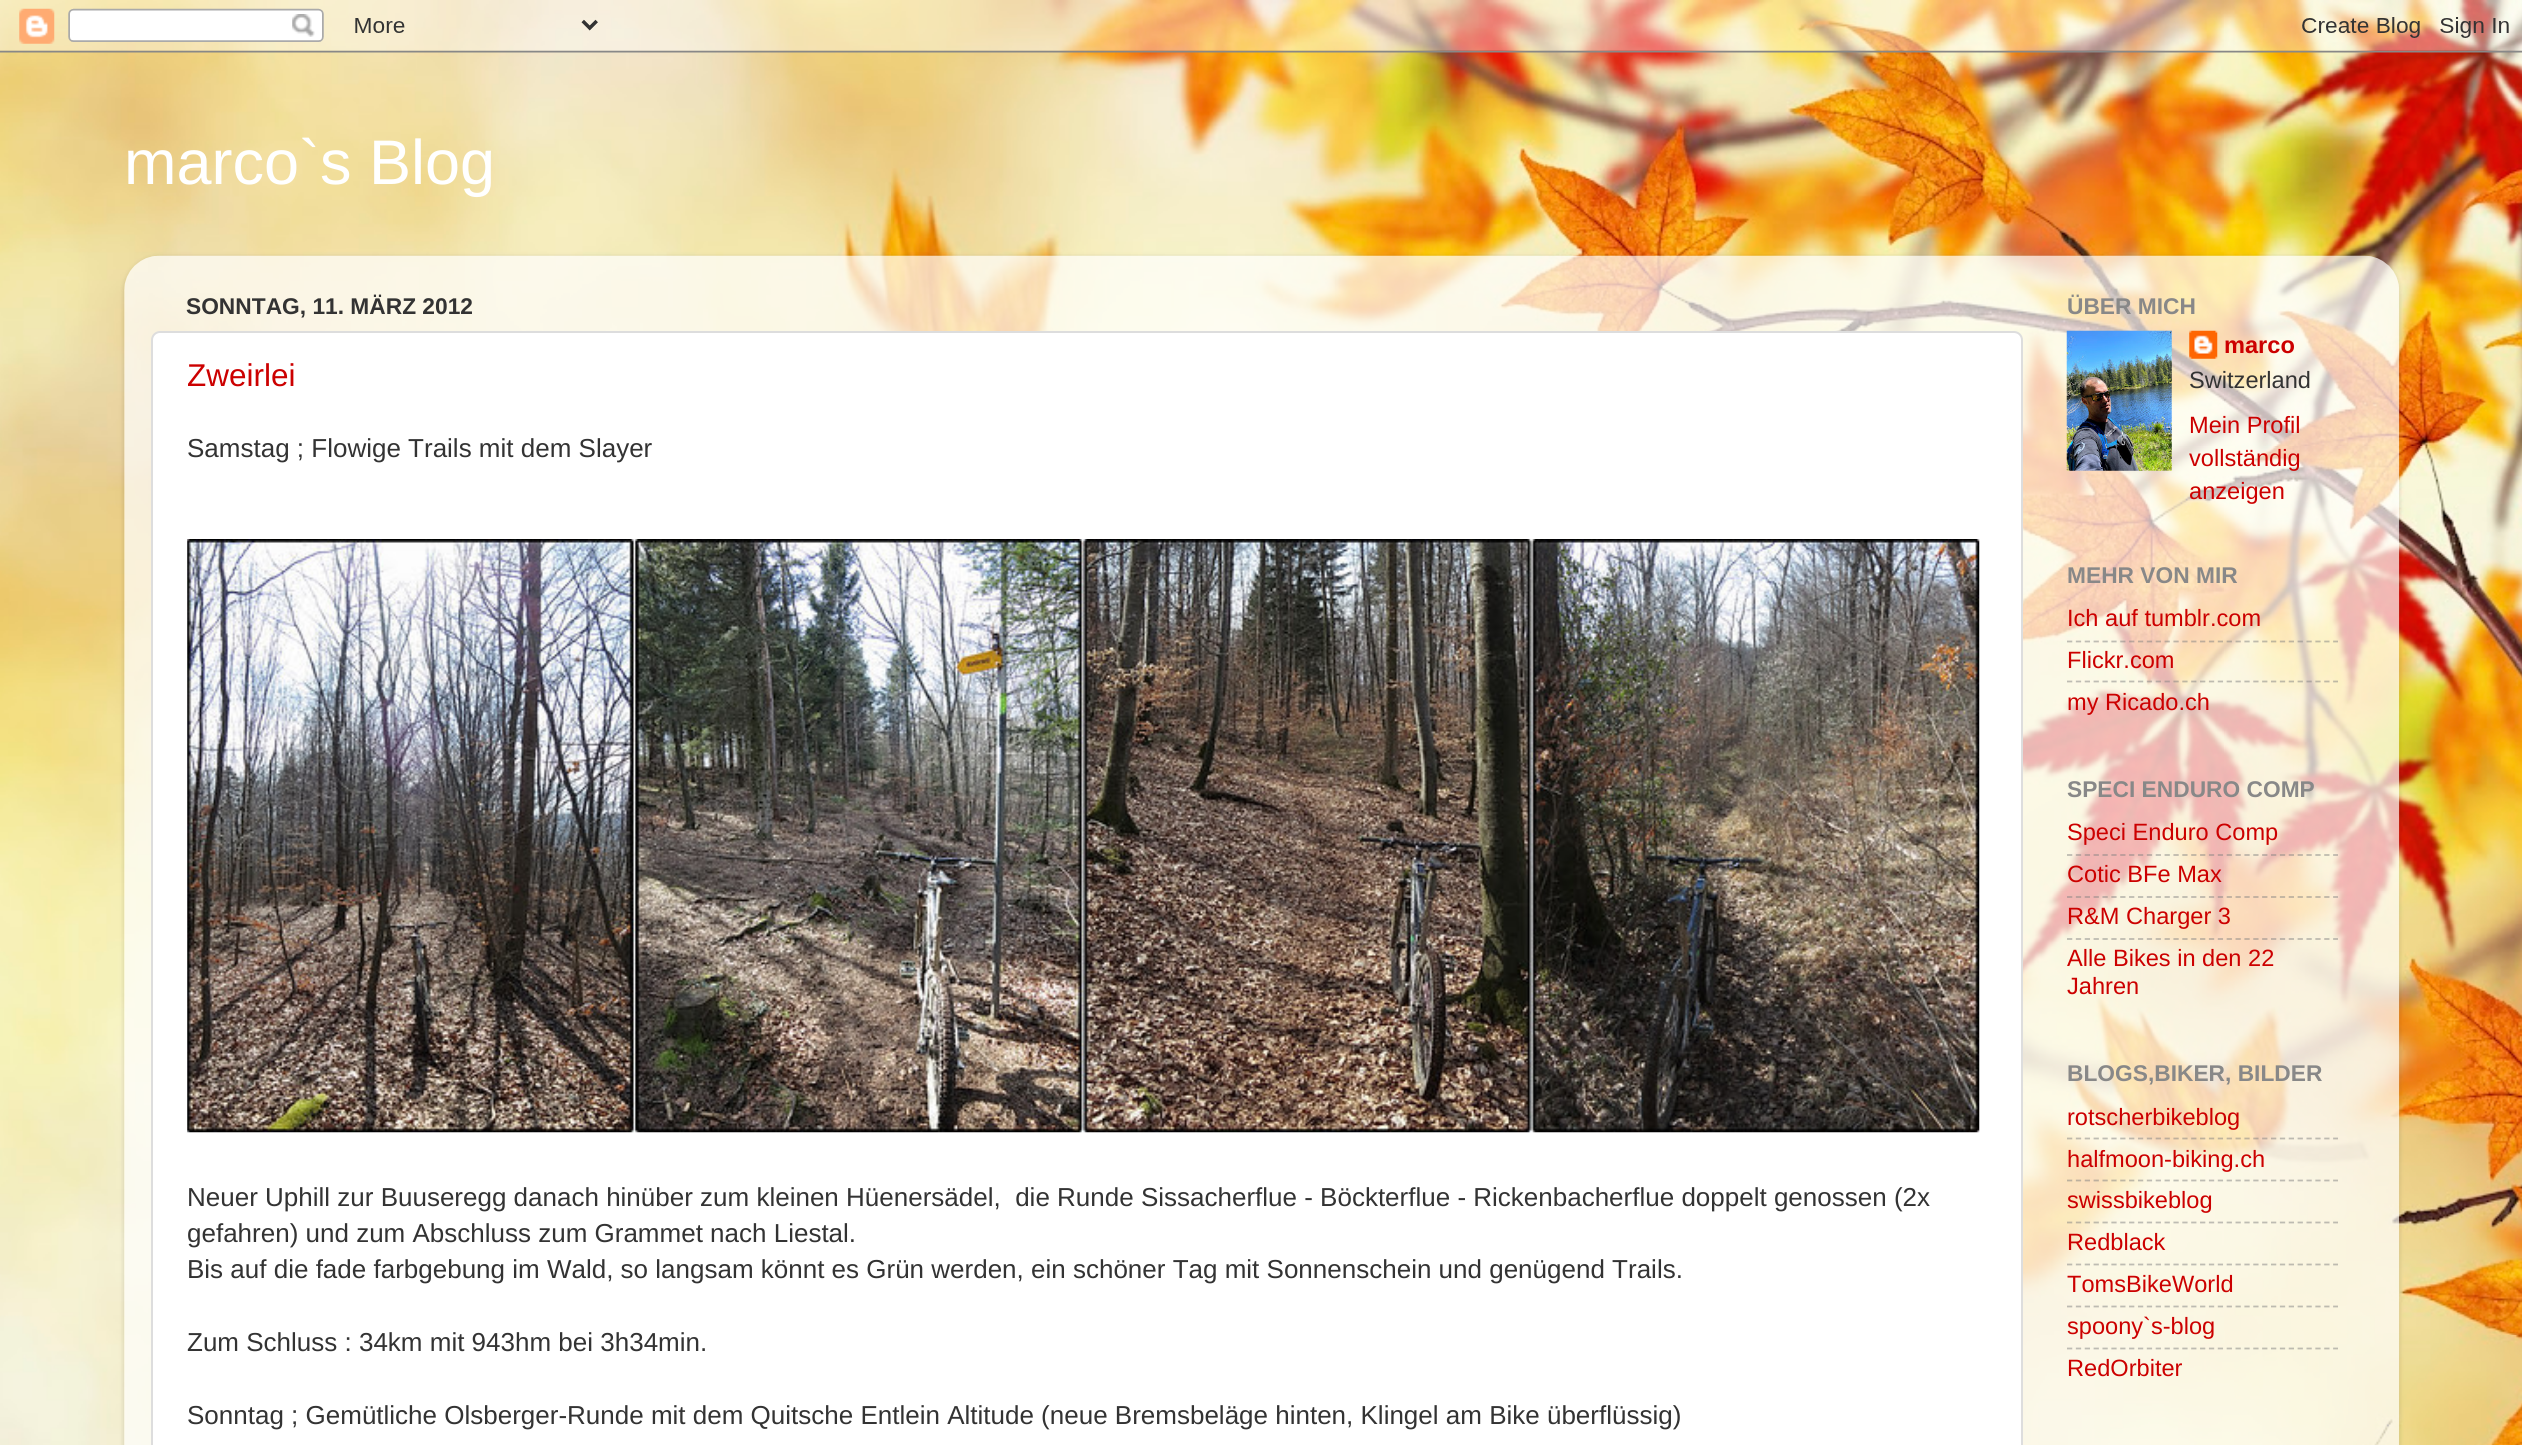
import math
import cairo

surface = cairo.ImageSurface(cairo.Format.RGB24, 2522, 1445)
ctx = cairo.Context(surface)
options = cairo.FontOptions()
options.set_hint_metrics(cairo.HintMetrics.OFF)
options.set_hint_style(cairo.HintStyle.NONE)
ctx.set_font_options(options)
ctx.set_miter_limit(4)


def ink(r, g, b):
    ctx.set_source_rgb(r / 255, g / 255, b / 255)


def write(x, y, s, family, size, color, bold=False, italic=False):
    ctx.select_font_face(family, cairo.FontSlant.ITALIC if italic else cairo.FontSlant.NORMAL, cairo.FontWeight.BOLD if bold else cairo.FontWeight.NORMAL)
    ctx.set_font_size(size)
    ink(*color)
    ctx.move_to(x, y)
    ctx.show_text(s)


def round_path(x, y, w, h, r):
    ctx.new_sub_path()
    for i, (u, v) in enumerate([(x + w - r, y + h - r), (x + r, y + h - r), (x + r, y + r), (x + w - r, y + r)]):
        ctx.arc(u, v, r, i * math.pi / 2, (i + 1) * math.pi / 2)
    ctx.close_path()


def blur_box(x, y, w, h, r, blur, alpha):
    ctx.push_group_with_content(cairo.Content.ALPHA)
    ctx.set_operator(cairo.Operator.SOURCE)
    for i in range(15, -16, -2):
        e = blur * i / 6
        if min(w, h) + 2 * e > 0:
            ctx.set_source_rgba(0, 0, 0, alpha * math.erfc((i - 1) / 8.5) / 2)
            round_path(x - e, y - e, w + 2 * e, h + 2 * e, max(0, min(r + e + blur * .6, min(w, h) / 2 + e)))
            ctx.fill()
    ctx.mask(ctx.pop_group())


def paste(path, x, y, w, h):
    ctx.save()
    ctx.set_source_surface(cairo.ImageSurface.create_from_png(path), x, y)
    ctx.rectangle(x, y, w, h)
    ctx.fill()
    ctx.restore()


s1 = dict(family="Liberation Sans", size=63, color=(255, 255, 255))
s2 = dict(family="Liberation Sans", size=22.75, color=(51, 51, 51), bold=True)
s3 = dict(family="Liberation Sans", size=31.5, color=(204, 0, 0))
s4 = dict(family="Liberation Sans", size=26, color=(51, 51, 51))
s5 = dict(family="Liberation Sans", size=22.75, color=(136, 136, 136), bold=True)
s6 = dict(family="Liberation Sans", size=23.6, color=(204, 0, 0), bold=True)
s7 = dict(family="Liberation Sans", size=23.6, color=(51, 51, 51))
s8 = dict(family="Liberation Sans", size=23.6, color=(204, 0, 0))

ink(255, 255, 255)
ctx.paint()
paste("pic1.png", 0, 0, 2522, 1445)
paste("pic2.png", 0, 0, 2522, 53)
write(124, 184, "marco`s Blog", **s1)
ctx.save()
ctx.set_fill_rule(cairo.FillRule.EVEN_ODD)
ctx.new_path()
ctx.move_to(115, 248)
ctx.line_to(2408, 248)
ctx.line_to(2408, 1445)
ctx.line_to(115, 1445)
ctx.close_path()
ctx.move_to(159, 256)
ctx.line_to(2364, 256)
ctx.curve_to(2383.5, 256, 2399, 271.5, 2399, 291)
ctx.line_to(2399, 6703)
ctx.line_to(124, 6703)
ctx.line_to(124, 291)
ctx.curve_to(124, 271.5, 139.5, 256, 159, 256)
ctx.close_path()
ctx.clip()
ink(0, 0, 0)
blur_box(124, 257, 2275, 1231, 35, 2.5, 0.15)
ctx.restore()
paste("pic3.png", 124, 255, 2276, 1190)
write(186, 314, "SONNTAG, 11. MÄRZ 2012", **s2)
ink(255, 255, 255)
round_path(152, 332, 1870, 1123, 8)
ctx.fill_preserve()
ink(221, 221, 221)
ctx.stroke()
write(187, 386, "Zweirlei", **s3)
write(187, 457, "Samstag ; Flowige Trails mit dem Slayer", **s4)
paste("pic4.png", 187, 539, 1793, 594)
write(187, 1206, "Neuer Uphill zur Buuseregg danach hinüber zum kleinen Hüenersädel,  die Runde Sissacherflue - Böckterflue - Rickenbacherflue doppelt genossen (2x", **s4)
write(187, 1242, "gefahren) und zum Abschluss zum Grammet nach Liestal.", **s4)
write(187, 1278, "Bis auf die fade farbgebung im Wald, so langsam könnt es Grün werden, ein schöner Tag mit Sonnenschein und genügend Trails.", **s4)
write(187, 1351, "Zum Schluss : 34km mit 943hm bei 3h34min.", **s4)
write(187, 1424, "Sonntag ; Gemütliche Olsberger-Runde mit dem Quitsche Entlein Altitude (neue Bremsbeläge hinten, Klingel am Bike überflüssig)", **s4)
write(2067, 314, "ÜBER MICH", **s5)
paste("pic5.png", 2066, 330, 106, 141)
paste("pic6.png", 2189, 330, 29, 29)
write(2224, 353, "marco", **s6)
write(2189, 388, "Switzerland", **s7)
write(2189, 433, "Mein Profil", **s8)
write(2189, 466, "vollständig", **s8)
write(2189, 499, "anzeigen", **s8)
write(2067, 583, "MEHR VON MIR", **s5)
write(2067, 626, "Ich auf tumblr.com", **s8)
ctx.new_path()
ctx.move_to(2067, 641.5)
ctx.line_to(2338, 641.5)
ctx.set_source_rgba(0.502, 0.502, 0.502, 0.5)
ctx.set_line_width(1.8)
ctx.set_dash([5.25, 3.62])
ctx.stroke()
write(2067, 668, "Flickr.com", **s8)
ctx.new_path()
ctx.move_to(2067, 681.5)
ctx.line_to(2338, 681.5)
ctx.set_source_rgba(0.502, 0.502, 0.502, 0.5)
ctx.stroke()
write(2067, 710, "my Ricado.ch", **s8)
write(2067, 797, "SPECI ENDURO COMP", **s5)
write(2067, 840, "Speci Enduro Comp", **s8)
ctx.new_path()
ctx.move_to(2067, 855)
ctx.line_to(2338, 855)
ctx.set_source_rgba(0.502, 0.502, 0.502, 0.5)
ctx.stroke()
write(2067, 882, "Cotic BFe Max", **s8)
ctx.new_path()
ctx.move_to(2067, 897)
ctx.line_to(2338, 897)
ctx.set_source_rgba(0.502, 0.502, 0.502, 0.5)
ctx.stroke()
write(2067, 924, "R&M Charger 3", **s8)
ctx.new_path()
ctx.move_to(2067, 939)
ctx.line_to(2338, 939)
ctx.set_source_rgba(0.502, 0.502, 0.502, 0.5)
ctx.stroke()
write(2067, 966, "Alle Bikes in den 22", **s8)
write(2067, 994, "Jahren", **s8)
write(2067, 1081, "BLOGS,BIKER, BILDER", **s5)
write(2067, 1125, "rotscherbikeblog", **s8)
ctx.new_path()
ctx.move_to(2067, 1138.5)
ctx.line_to(2338, 1138.5)
ctx.set_source_rgba(0.502, 0.502, 0.502, 0.5)
ctx.stroke()
write(2067, 1167, "halfmoon-biking.ch", **s8)
ctx.new_path()
ctx.move_to(2067, 1180.5)
ctx.line_to(2338, 1180.5)
ctx.set_source_rgba(0.502, 0.502, 0.502, 0.5)
ctx.stroke()
write(2067, 1208, "swissbikeblog", **s8)
ctx.new_path()
ctx.move_to(2067, 1222.5)
ctx.line_to(2338, 1222.5)
ctx.set_source_rgba(0.502, 0.502, 0.502, 0.5)
ctx.stroke()
write(2067, 1250, "Redblack", **s8)
ctx.new_path()
ctx.move_to(2067, 1264.5)
ctx.line_to(2338, 1264.5)
ctx.set_source_rgba(0.502, 0.502, 0.502, 0.5)
ctx.stroke()
write(2067, 1292, "TomsBikeWorld", **s8)
ctx.new_path()
ctx.move_to(2067, 1306.5)
ctx.line_to(2338, 1306.5)
ctx.set_source_rgba(0.502, 0.502, 0.502, 0.5)
ctx.stroke()
write(2067, 1334, "spoony`s-blog", **s8)
ctx.new_path()
ctx.move_to(2067, 1348.5)
ctx.line_to(2338, 1348.5)
ctx.set_source_rgba(0.502, 0.502, 0.502, 0.5)
ctx.stroke()
write(2067, 1376, "RedOrbiter", **s8)
surface.write_to_png("screenshot.png")
